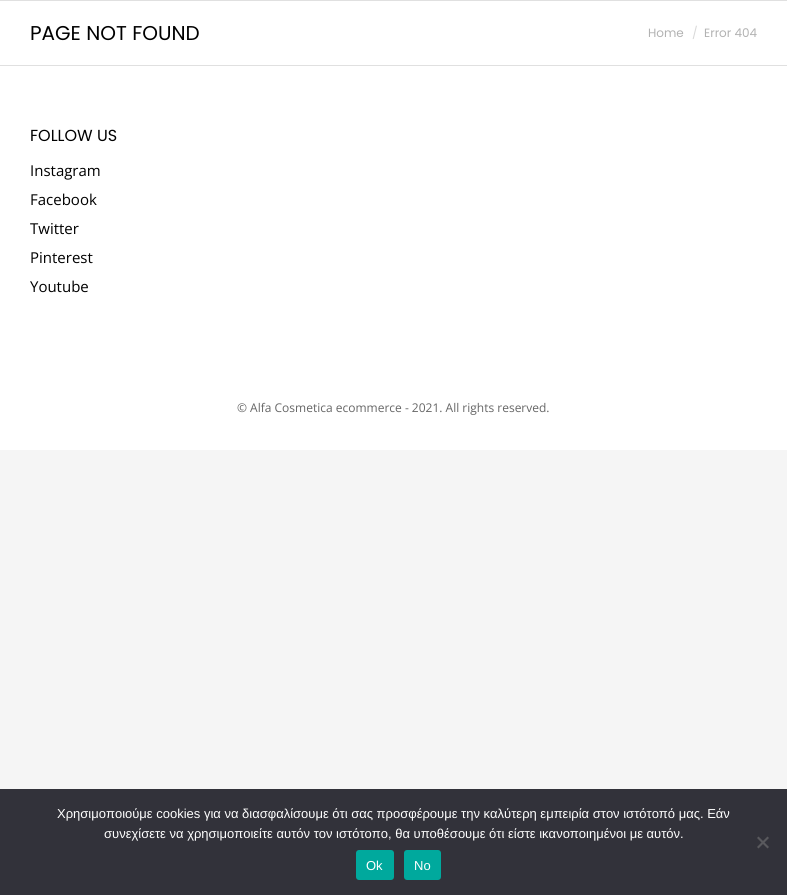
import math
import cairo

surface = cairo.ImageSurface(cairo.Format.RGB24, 787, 895)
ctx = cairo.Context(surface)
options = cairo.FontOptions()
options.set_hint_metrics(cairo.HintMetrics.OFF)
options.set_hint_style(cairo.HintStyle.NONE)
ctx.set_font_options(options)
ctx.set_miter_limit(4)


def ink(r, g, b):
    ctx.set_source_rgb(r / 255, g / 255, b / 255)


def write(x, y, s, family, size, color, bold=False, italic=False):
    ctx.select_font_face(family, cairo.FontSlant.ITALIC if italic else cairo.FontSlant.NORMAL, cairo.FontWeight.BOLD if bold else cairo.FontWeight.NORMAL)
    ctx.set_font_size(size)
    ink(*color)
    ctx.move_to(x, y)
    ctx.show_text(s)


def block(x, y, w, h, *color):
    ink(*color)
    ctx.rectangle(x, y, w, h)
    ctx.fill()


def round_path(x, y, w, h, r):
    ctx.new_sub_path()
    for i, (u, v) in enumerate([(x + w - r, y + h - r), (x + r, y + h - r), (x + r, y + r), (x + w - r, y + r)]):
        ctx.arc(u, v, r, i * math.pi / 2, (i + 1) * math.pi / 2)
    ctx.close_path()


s1 = dict(family="Poppins", size=20, color=(0, 0, 0))
s2 = dict(family="Poppins", size=12, color=(178, 178, 178))
s3 = dict(family="Poppins", size=12, color=(217, 217, 217))
s4 = dict(family="Poppins", size=16, color=(0, 0, 0))
s5 = dict(family="Open Sans", size=15, color=(0, 0, 0))
s6 = dict(family="Open Sans", size=12, color=(102, 102, 102))
s7 = dict(family="Liberation Sans", size=13, color=(255, 255, 255))

ink(245, 245, 245)
ctx.paint()
block(0, 1, 787, 449, 255, 255, 255)
block(0, 0, 787, 1, 224, 224, 224)
block(0, 65, 787, 1, 224, 224, 224)
write(30, 40, "PAGE NOT FOUND", **s1)
write(648, 37, "Home", **s2)
write(692, 37, "/", **s3)
write(704, 37, "Error 404", **s2)
write(30, 141, "FOLLOW US", **s4)
write(30, 176, "Instagram", **s5)
write(30, 205, "Facebook", **s5)
write(30, 234, "Twitter", **s5)
write(30, 263, "Pinterest", **s5)
write(30, 292, "Youtube", **s5)
write(237, 412, "© Alfa Cosmetica ecommerce - 2021. All rights reserved.", **s6)
block(0, 789, 787, 106, 50, 50, 58)
write(57, 818, "Χρησιμοποιούμε cookies για να διασφαλίσουμε ότι σας προσφέρουμε την καλύτερη εμπειρία στον ιστότοπό μας. Εάν", **s7)
write(104, 838, "συνεχίσετε να χρησιμοποιείτε αυτόν τον ιστότοπο, θα υποθέσουμε ότι είστε ικανοποιημένοι με αυτόν.", **s7)
ink(89, 89, 93)
ctx.new_path()
ctx.move_to(767.5, 836.5)
ctx.line_to(769, 838)
ctx.line_to(758.5, 848.5)
ctx.line_to(757, 847)
ctx.close_path()
ctx.fill()
ctx.new_path()
ctx.move_to(757, 838)
ctx.line_to(758.5, 836.5)
ctx.line_to(769, 847)
ctx.line_to(767.5, 848.5)
ctx.close_path()
ctx.fill()
ink(0, 169, 157)
round_path(356, 850, 38, 30, 3)
ctx.fill()
write(366, 870, "Ok", **s7)
ink(0, 169, 157)
round_path(404, 850, 37, 30, 3)
ctx.fill()
write(414, 870, "No", **s7)
surface.write_to_png("screenshot.png")
